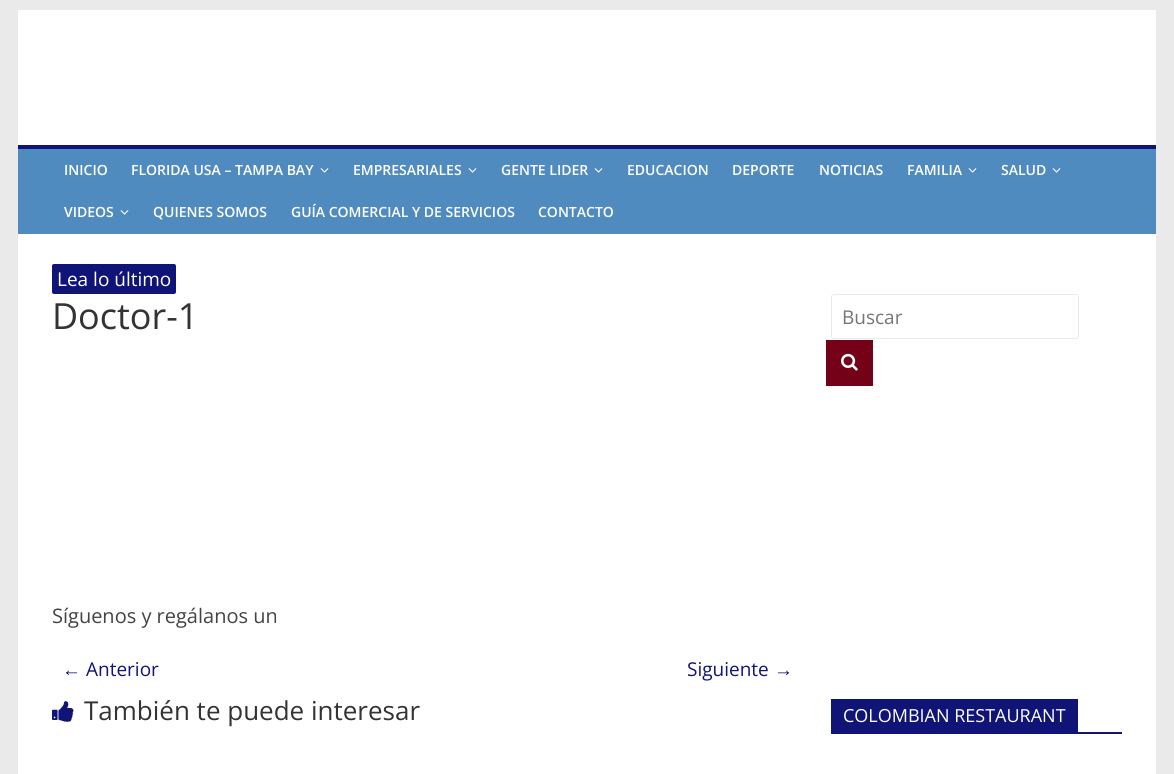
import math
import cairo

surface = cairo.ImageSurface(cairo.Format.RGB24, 1174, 774)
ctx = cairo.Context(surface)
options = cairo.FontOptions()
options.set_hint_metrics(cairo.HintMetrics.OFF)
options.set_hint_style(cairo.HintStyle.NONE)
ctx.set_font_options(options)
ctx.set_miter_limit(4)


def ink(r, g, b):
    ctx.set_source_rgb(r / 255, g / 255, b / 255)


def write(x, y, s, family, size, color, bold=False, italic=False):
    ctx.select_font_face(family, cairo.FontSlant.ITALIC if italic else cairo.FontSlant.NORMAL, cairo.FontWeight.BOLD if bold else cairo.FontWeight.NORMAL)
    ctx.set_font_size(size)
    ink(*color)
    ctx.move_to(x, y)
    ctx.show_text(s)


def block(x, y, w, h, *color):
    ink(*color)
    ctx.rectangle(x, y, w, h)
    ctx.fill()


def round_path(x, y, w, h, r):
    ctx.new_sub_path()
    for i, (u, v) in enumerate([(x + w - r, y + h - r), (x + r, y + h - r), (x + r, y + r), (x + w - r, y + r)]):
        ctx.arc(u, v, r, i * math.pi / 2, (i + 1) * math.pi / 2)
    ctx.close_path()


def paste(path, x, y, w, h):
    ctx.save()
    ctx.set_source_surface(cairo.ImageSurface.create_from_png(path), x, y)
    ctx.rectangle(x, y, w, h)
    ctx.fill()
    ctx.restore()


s1 = dict(family="Open Sans SemiBold", size=14, color=(255, 255, 255))
s2 = dict(family="Open Sans", size=19, color=(255, 255, 255))
s3 = dict(family="Open Sans", size=36, color=(51, 51, 51))
s4 = dict(family="Open Sans", size=20, color=(68, 68, 68))
s5 = dict(family="Liberation Serif", size=19, color=(16, 20, 119))
s6 = dict(family="Open Sans", size=19, color=(16, 20, 119))
s7 = dict(family="Open Sans", size=26, color=(51, 51, 51))
s8 = dict(family="Open Sans", size=19, color=(117, 117, 117))
s9 = dict(family="Open Sans", size=18, color=(255, 255, 255))

ink(234, 234, 234)
ctx.paint()
block(18, 10, 1138, 135, 255, 255, 255)
block(18, 149, 1138, 85, 80, 139, 191)
block(18, 145, 1138, 4, 16, 20, 119)
write(64, 175, "INICIO", **s1)
write(131, 175, "FLORIDA USA – TAMPA BAY", **s1)
paste("pic1.png", 320, 168, 9, 5)
write(353, 175, "EMPRESARIALES", **s1)
paste("pic1.png", 468, 168, 9, 5)
write(501, 175, "GENTE LIDER", **s1)
paste("pic1.png", 594, 168, 9, 5)
write(627, 175, "EDUCACION", **s1)
write(732, 175, "DEPORTE", **s1)
write(819, 175, "NOTICIAS", **s1)
write(907, 175, "FAMILIA", **s1)
paste("pic1.png", 968, 168, 9, 5)
write(1001, 175, "SALUD", **s1)
paste("pic1.png", 1052, 168, 9, 5)
write(64, 217, "VIDEOS", **s1)
paste("pic1.png", 120, 210, 9, 5)
write(153, 217, "QUIENES SOMOS", **s1)
write(291, 217, "GUÍA COMERCIAL Y DE SERVICIOS", **s1)
write(538, 217, "CONTACTO", **s1)
block(18, 234, 1138, 540, 255, 255, 255)
ink(16, 20, 119)
round_path(52, 264, 124, 30, 2)
ctx.fill()
write(57, 286, "Lea lo último", **s2)
write(52, 329, "Doctor-1", **s3)
write(52, 623, "Síguenos y regálanos un", **s4)
write(62, 676, "←", **s5)
write(86, 676, "Anterior", **s6)
write(687, 676, "Siguiente", **s6)
write(774, 676, "→", **s5)
paste("pic2.png", 52, 701, 22, 21)
write(84, 720, "También te puede interesar", **s7)
round_path(831.5, 294.5, 247, 44, 2.5)
ink(234, 234, 234)
ctx.set_line_width(1)
ctx.stroke()
write(842, 324, "Buscar", **s8)
block(826, 340, 47, 46, 117, 1, 24)
paste("pic3.png", 841, 353, 17, 18)
block(831, 732, 291, 2, 16, 20, 119)
block(831, 699, 247, 33, 16, 20, 119)
write(843, 722, "COLOMBIAN RESTAURANT", **s9)
surface.write_to_png("screenshot.png")
